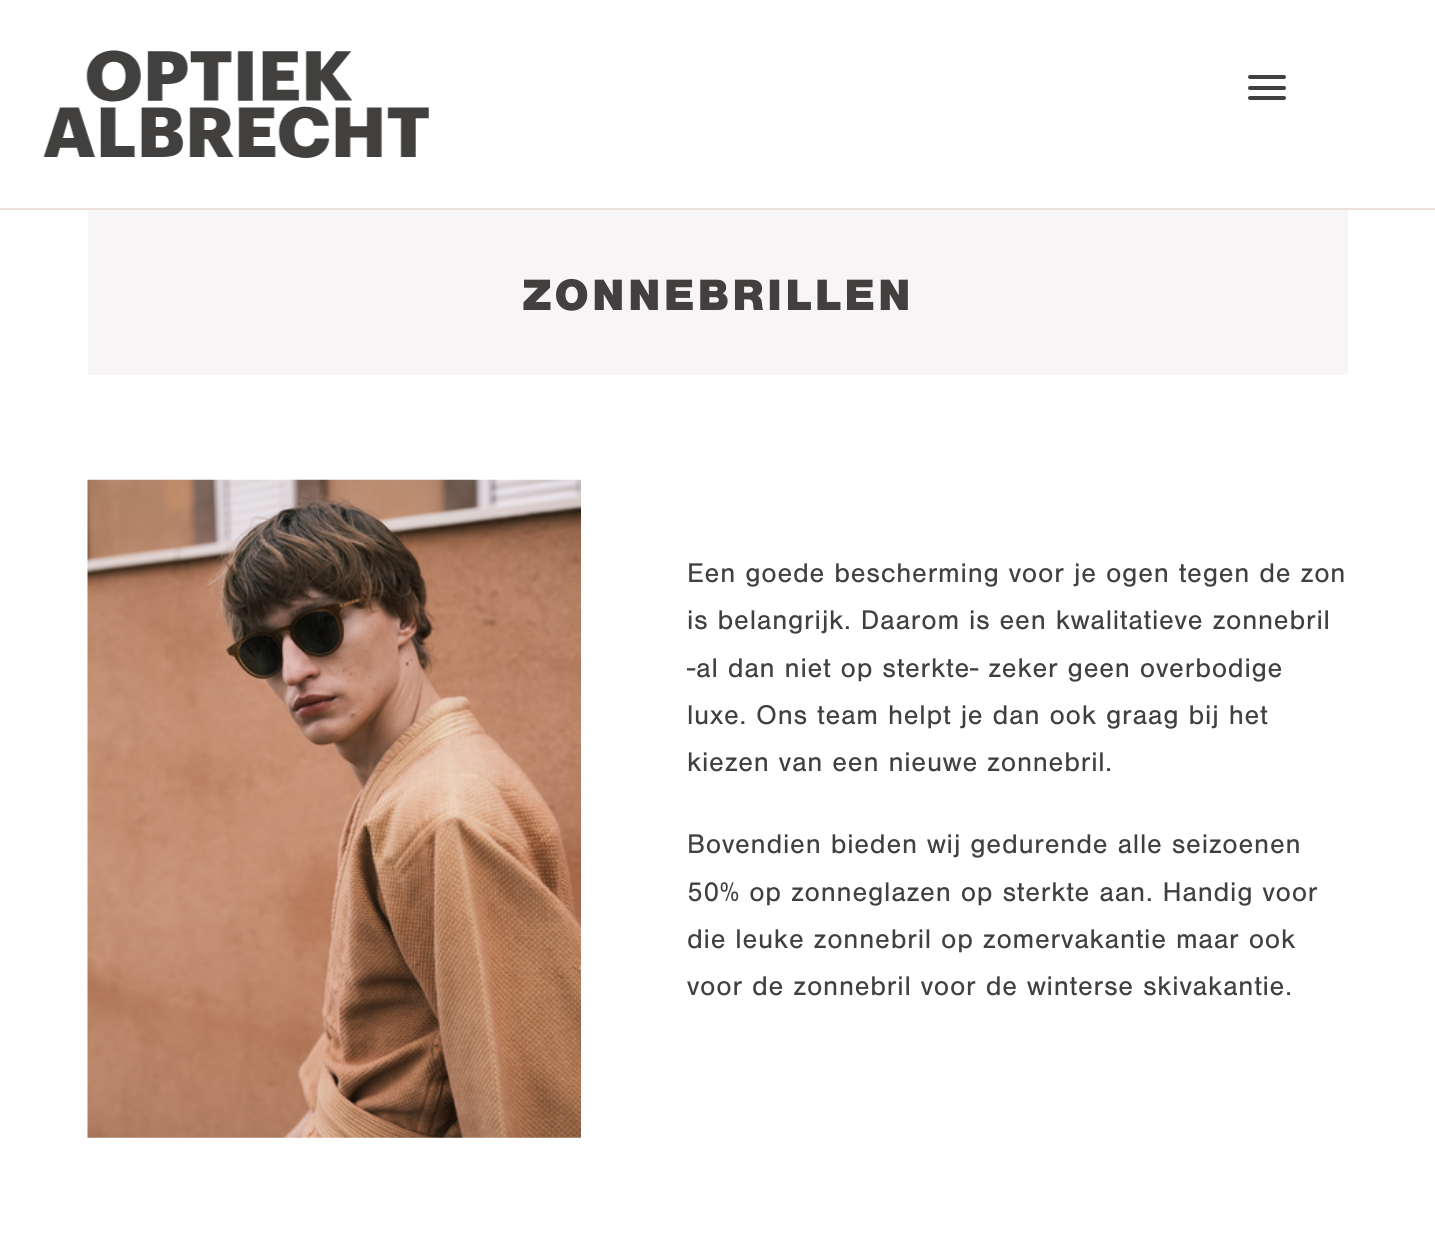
import math
import cairo

surface = cairo.ImageSurface(cairo.Format.RGB24, 1435, 1236)
ctx = cairo.Context(surface)
options = cairo.FontOptions()
options.set_hint_metrics(cairo.HintMetrics.OFF)
options.set_hint_style(cairo.HintStyle.NONE)
ctx.set_font_options(options)
ctx.set_miter_limit(4)


def ink(r, g, b):
    ctx.set_source_rgb(r / 255, g / 255, b / 255)


def write_spaced(x, y, s, letter, word):
    ctx.move_to(x, y)
    for ch in s:
        ctx.show_text(ch)
        ctx.rel_move_to(letter + word * (ch == ' '), 0)


def block(x, y, w, h, *color):
    ink(*color)
    ctx.rectangle(x, y, w, h)
    ctx.fill()


def round_path(x, y, w, h, r):
    ctx.new_sub_path()
    for i, (u, v) in enumerate([(x + w - r, y + h - r), (x + r, y + h - r), (x + r, y + r), (x + w - r, y + r)]):
        ctx.arc(u, v, r, i * math.pi / 2, (i + 1) * math.pi / 2)
    ctx.close_path()


def paste(path, x, y, w, h):
    ctx.save()
    ctx.set_source_surface(cairo.ImageSurface.create_from_png(path), x, y)
    ctx.rectangle(x, y, w, h)
    ctx.fill()
    ctx.restore()


ink(255, 255, 255)
ctx.paint()
block(0, 208, 1435, 2, 236, 224, 220)
paste("pic1.png", 43, 50, 386, 108)
ink(65, 64, 63)
round_path(1248, 75, 38, 4, 2)
ctx.fill()
round_path(1248, 86, 38, 4, 2)
ctx.fill()
round_path(1248, 96, 38, 4, 2)
ctx.fill()
block(88, 210, 1260, 165, 248, 245, 246)
ctx.select_font_face("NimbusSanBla")
ctx.set_font_size(45.5)
ink(65, 64, 63)
write_spaced(522, 310, "ZONNEBRILLEN", 2.75, 0)
paste("pic2.png", 87, 479, 494, 659)
ctx.select_font_face("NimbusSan")
ctx.set_font_size(28)
write_spaced(687, 582, "Een goede bescherming voor je ogen tegen de zon", 0.75, 0)
write_spaced(687, 629, "is belangrijk. Daarom is een kwalitatieve zonnebril", 0.75, 0)
write_spaced(687, 677, "-al dan niet op sterkte- zeker geen overbodige", 0.75, 0)
write_spaced(687, 724, "luxe. Ons team helpt je dan ook graag bij het", 0.75, 0)
write_spaced(687, 771, "kiezen van een nieuwe zonnebril.", 0.75, 0)
write_spaced(687, 853, "Bovendien bieden wij gedurende alle seizoenen", 0.75, 0)
write_spaced(687, 901, "50% op zonneglazen op sterkte aan. Handig voor", 0.75, 0)
write_spaced(687, 948, "die leuke zonnebril op zomervakantie maar ook", 0.75, 0)
write_spaced(687, 995, "voor de zonnebril voor de winterse skivakantie.", 0.75, 0)
surface.write_to_png("screenshot.png")
